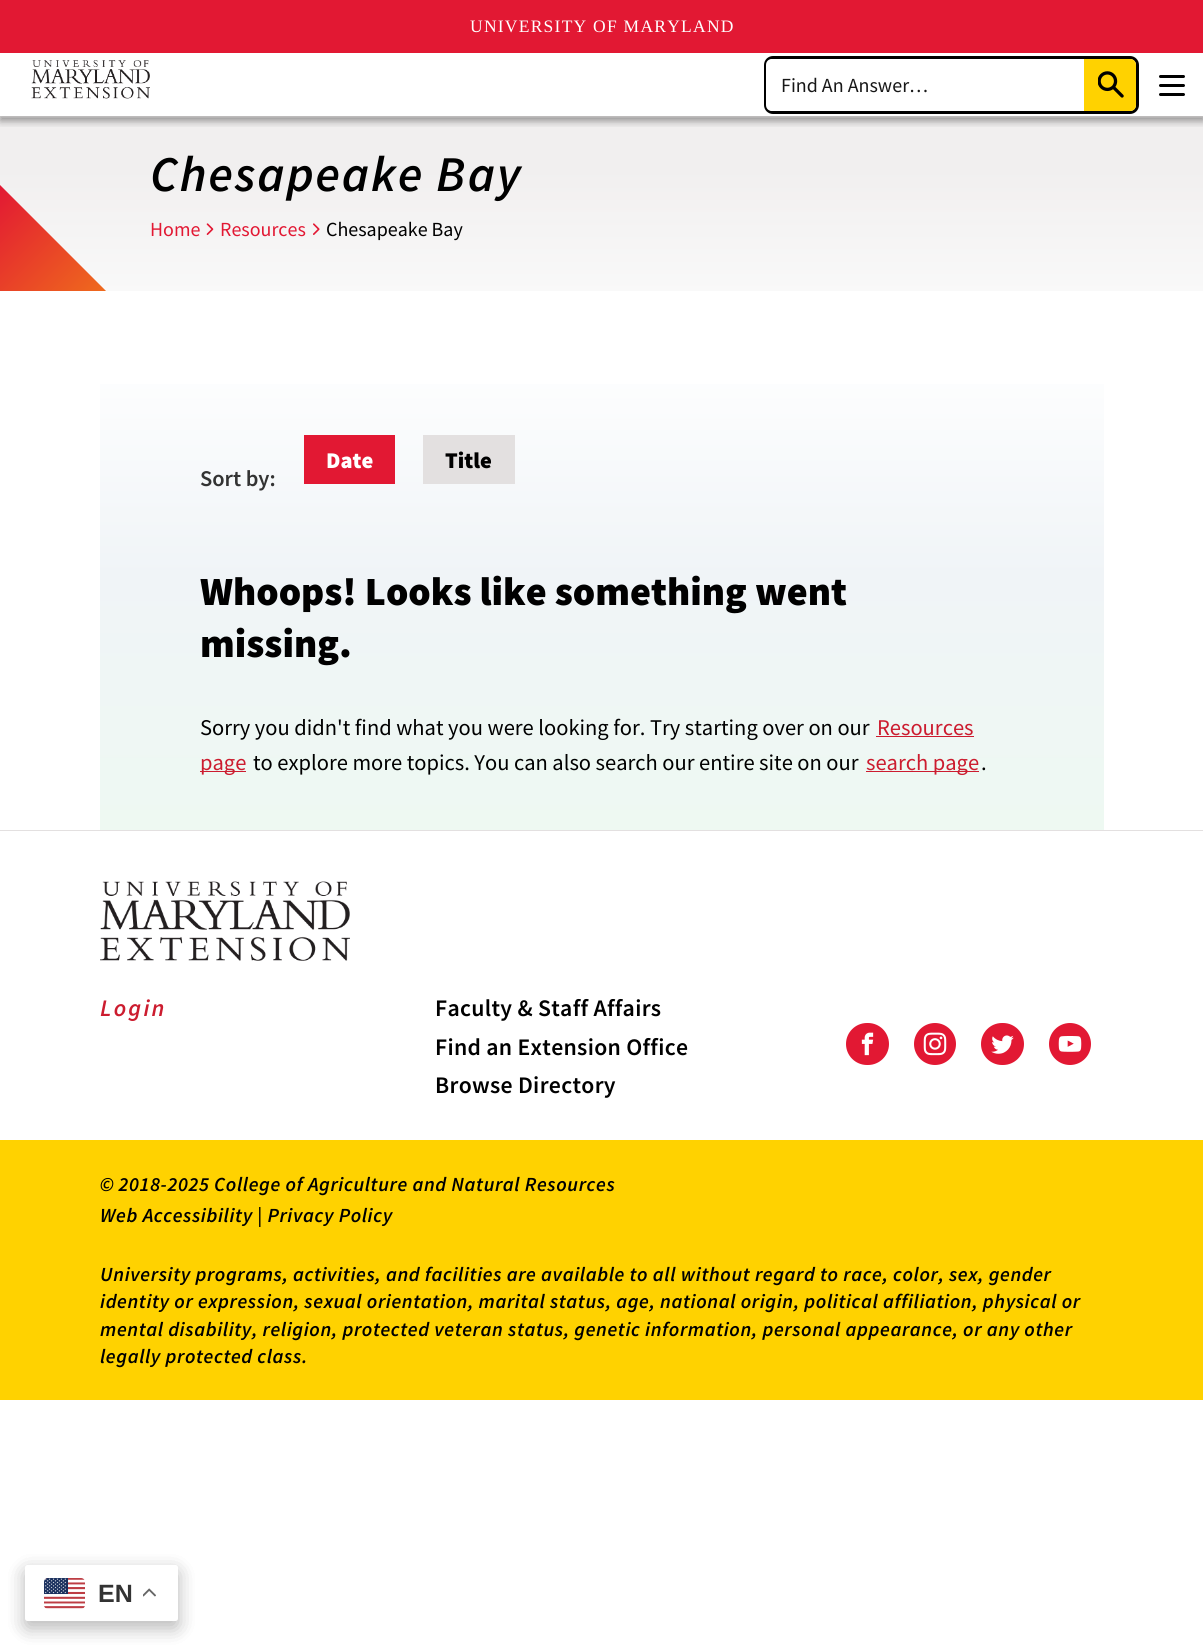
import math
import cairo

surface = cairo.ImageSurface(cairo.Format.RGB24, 1203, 1649)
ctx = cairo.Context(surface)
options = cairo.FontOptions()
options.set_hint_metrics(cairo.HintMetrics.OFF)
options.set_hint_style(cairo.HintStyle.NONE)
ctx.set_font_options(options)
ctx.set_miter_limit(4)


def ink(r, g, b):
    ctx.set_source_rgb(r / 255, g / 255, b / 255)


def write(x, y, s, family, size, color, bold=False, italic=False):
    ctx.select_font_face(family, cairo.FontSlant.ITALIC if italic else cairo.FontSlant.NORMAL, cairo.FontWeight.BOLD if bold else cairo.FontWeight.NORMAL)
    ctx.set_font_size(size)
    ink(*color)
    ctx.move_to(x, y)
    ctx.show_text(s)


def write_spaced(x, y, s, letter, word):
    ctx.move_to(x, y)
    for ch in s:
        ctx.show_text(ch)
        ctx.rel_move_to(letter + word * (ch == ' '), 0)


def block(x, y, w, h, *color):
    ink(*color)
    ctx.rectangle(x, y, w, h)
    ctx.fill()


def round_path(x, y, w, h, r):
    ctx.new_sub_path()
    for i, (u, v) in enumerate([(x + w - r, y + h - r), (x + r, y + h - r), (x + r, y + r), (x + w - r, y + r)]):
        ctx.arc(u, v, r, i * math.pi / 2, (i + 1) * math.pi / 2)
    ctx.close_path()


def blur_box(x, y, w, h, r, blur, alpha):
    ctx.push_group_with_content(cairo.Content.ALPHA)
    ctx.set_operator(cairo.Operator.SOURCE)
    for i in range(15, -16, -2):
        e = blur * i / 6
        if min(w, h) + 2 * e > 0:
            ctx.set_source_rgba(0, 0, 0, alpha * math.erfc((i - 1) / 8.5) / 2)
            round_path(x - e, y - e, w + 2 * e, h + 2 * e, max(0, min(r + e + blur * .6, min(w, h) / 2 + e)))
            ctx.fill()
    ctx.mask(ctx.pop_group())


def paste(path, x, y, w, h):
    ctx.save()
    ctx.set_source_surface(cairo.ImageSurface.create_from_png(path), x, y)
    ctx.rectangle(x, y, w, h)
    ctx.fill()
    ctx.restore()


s1 = dict(family="Source Sans Pro", size=20, color=(23, 23, 23))
s2 = dict(family="Liberation Sans", size=25, color=(51, 51, 51), bold=True)
s3 = dict(family="Source Sans Pro", size=20, color=(226, 24, 51))
s4 = dict(family="Source Sans Pro", size=20, color=(0, 0, 0))
s5 = dict(family="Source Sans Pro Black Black", size=22.5, color=(255, 255, 255))
s6 = dict(family="Source Sans Pro Black Black", size=22.5, color=(0, 0, 0))
s7 = dict(family="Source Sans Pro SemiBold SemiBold", size=22.5, color=(51, 51, 51))
s8 = dict(family="Source Sans Pro Black Black", size=40, color=(0, 0, 0))
s9 = dict(family="Source Sans Pro", size=22.5, color=(0, 0, 0))
s10 = dict(family="Source Sans Pro", size=22.5, color=(204, 28, 47))

ink(255, 255, 255)
ctx.paint()
block(0, 0, 1203, 53, 226, 24, 51)
ctx.select_font_face("Liberation Serif")
ctx.set_font_size(17.5)
ink(255, 255, 255)
write_spaced(470, 32, "UNIVERSITY OF MARYLAND", 1.25, 0)
paste("pic1.png", 31, 60, 119, 39)
gradient = cairo.LinearGradient(602, 116, 602, 291)
gradient.add_color_stop_rgba(0.3, 0.945, 0.937, 0.937, 1)
gradient.add_color_stop_rgba(1, 0.976, 0.976, 0.976, 1)
ctx.set_source(gradient)
ctx.rectangle(0, 116, 1203, 175)
ctx.fill()
ctx.save()
ctx.rectangle(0, 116, 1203, 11)
ctx.clip()
ink(0, 0, 0)
blur_box(0, 116, 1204, 5, 0, 4, 0.4)
ctx.restore()
block(0, 109, 1203, 3, 255, 255, 255)
round_path(765.5, 57.5, 372, 55, 7.5)
ink(0, 0, 0)
ctx.set_line_width(3)
ctx.stroke()
ink(255, 255, 255)
ctx.new_path()
ctx.move_to(772, 59)
ctx.line_to(1084, 59)
ctx.line_to(1084, 111)
ctx.line_to(772, 111)
ctx.curve_to(768.5, 111, 766, 108.5, 766, 105)
ctx.line_to(766, 65)
ctx.curve_to(766, 61.5, 768.5, 59, 772, 59)
ctx.close_path()
ctx.fill()
write(781, 92, "Find An Answer…", **s1)
ink(255, 210, 0)
ctx.new_path()
ctx.move_to(1084, 59)
ctx.line_to(1130, 59)
ctx.curve_to(1133.5, 59, 1136, 61.5, 1136, 65)
ctx.line_to(1136, 105)
ctx.curve_to(1136, 108.5, 1133.5, 111, 1130, 111)
ctx.line_to(1084, 111)
ctx.close_path()
ctx.fill()
paste("pic2.png", 1098, 71, 26, 27)
ink(0, 0, 0)
round_path(1159, 75, 26, 3, 1.5)
ctx.fill()
round_path(1159, 84, 26, 3, 1.5)
ctx.fill()
round_path(1159, 93, 26, 3, 1.5)
ctx.fill()
ink(0, 0, 0)
blur_box(25, 1571, 153, 57, 2.5, 9.5, 0.15)
blur_box(25, 1571, 153, 57, 2.5, 9.5, 0.15)
ink(255, 255, 255)
round_path(25, 1565, 153, 56, 2.5)
ctx.fill()
paste("pic3.png", 44, 1578, 41, 31)
write(98, 1602, "EN", **s2)
paste("pic4.png", 143, 1588, 13, 9)
ctx.select_font_face("Source Sans Pro SemiBold SemiBold", cairo.FontSlant.ITALIC)
ctx.set_font_size(50)
ink(0, 0, 0)
write_spaced(150, 191, "Chesapeake Bay", 1.9, 0)
gradient = cairo.LinearGradient(106, 291, 0, 185)
gradient.add_color_stop_rgba(0, 0.937, 0.416, 0.114, 1)
gradient.add_color_stop_rgba(1, 0.886, 0.094, 0.2, 1)
ctx.set_source(gradient)
ctx.new_path()
ctx.move_to(0, 185)
ctx.line_to(0, 291)
ctx.line_to(106, 291)
ctx.close_path()
ctx.fill()
write(150, 236, "Home", **s3)
paste("pic5.png", 206, 223, 8, 12)
write(220, 236, "Resources", **s3)
paste("pic6.png", 313, 223, 7, 12)
write(326, 236, "Chesapeake Bay", **s4)
gradient = cairo.LinearGradient(602, 291, 602, 830)
gradient.add_color_stop_rgba(0.1, 1, 1, 1, 1)
gradient.add_color_stop_rgba(0.53, 0.941, 0.957, 0.969, 1)
gradient.add_color_stop_rgba(1, 0.933, 0.976, 0.949, 1)
ctx.set_source(gradient)
ctx.rectangle(100, 384, 1004, 446)
ctx.fill()
block(304, 435, 91, 49, 226, 24, 51)
write(326, 468, "Date", **s5)
block(423, 435, 92, 49, 227, 224, 224)
write(445, 468, "Title", **s6)
write(200, 486, "Sort by:", **s7)
write(200, 605, "Whoops! Looks like something went", **s8)
write(200, 657, "missing.", **s8)
write(200, 735, "Sorry you didn't find what you were looking for. Try starting over on our", **s9)
write(877, 735, "Resources", **s10)
block(876, 736, 98, 1, 204, 28, 47)
block(200, 771, 46, 1, 204, 28, 47)
write(200, 770, "page", **s10)
write(253, 770, "to explore more topics. You can also search our entire site on our", **s9)
block(866, 771, 113, 1, 204, 28, 47)
write(866, 770, "search page", **s10)
write(981, 770, ".", **s9)
block(0, 830, 1203, 1, 227, 224, 224)
paste("pic7.png", 100, 881, 250, 80)
ctx.select_font_face("Source Sans Pro SemiBold SemiBold", cairo.FontSlant.ITALIC)
ctx.set_font_size(23.75)
ink(204, 28, 47)
write_spaced(100, 1016, "Login", 2.25, 0)
ctx.select_font_face("Source Sans Pro SemiBold SemiBold")
ink(0, 0, 0)
write_spaced(435, 1016, "Faculty & Staff Affairs", 0.3, 0)
write_spaced(435, 1055, "Find an Extension Office", 0.3, 0)
write_spaced(435, 1093, "Browse Directory", 0.3, 0)
ink(226, 24, 51)
round_path(846, 1023, 43, 42, 21)
ctx.fill()
paste("pic8.png", 861, 1032, 13, 24)
ctx.arc(935, 1044, 21, 0, 2 * math.pi)
ctx.fill()
paste("pic9.png", 923, 1032, 24, 24)
round_path(981, 1023, 43, 42, 21)
ctx.fill()
paste("pic10.png", 991, 1035, 23, 19)
ctx.arc(1070, 1044, 21, 0, 2 * math.pi)
ctx.fill()
paste("pic11.png", 1058, 1036, 24, 16)
block(0, 1140, 1203, 260, 255, 210, 0)
ctx.select_font_face("Source Sans Pro SemiBold SemiBold", cairo.FontSlant.ITALIC)
ctx.set_font_size(20)
ink(0, 0, 0)
write_spaced(100, 1191, "© 2018-2025 College of Agriculture and Natural Resources", 0.62, 0)
write_spaced(100, 1222, "Web Accessibility | Privacy Policy", 0.62, 0)
write_spaced(100, 1281, "University programs, activities, and facilities are available to all without regard to race, color, sex, gender", 0.62, 0)
write_spaced(100, 1308, "identity or expression, sexual orientation, marital status, age, national origin, political affiliation, physical or", 0.62, 0)
write_spaced(100, 1336, "mental disability, religion, protected veteran status, genetic information, personal appearance, or any other", 0.62, 0)
write_spaced(100, 1363, "legally protected class.", 0.62, 0)
surface.write_to_png("screenshot.png")
